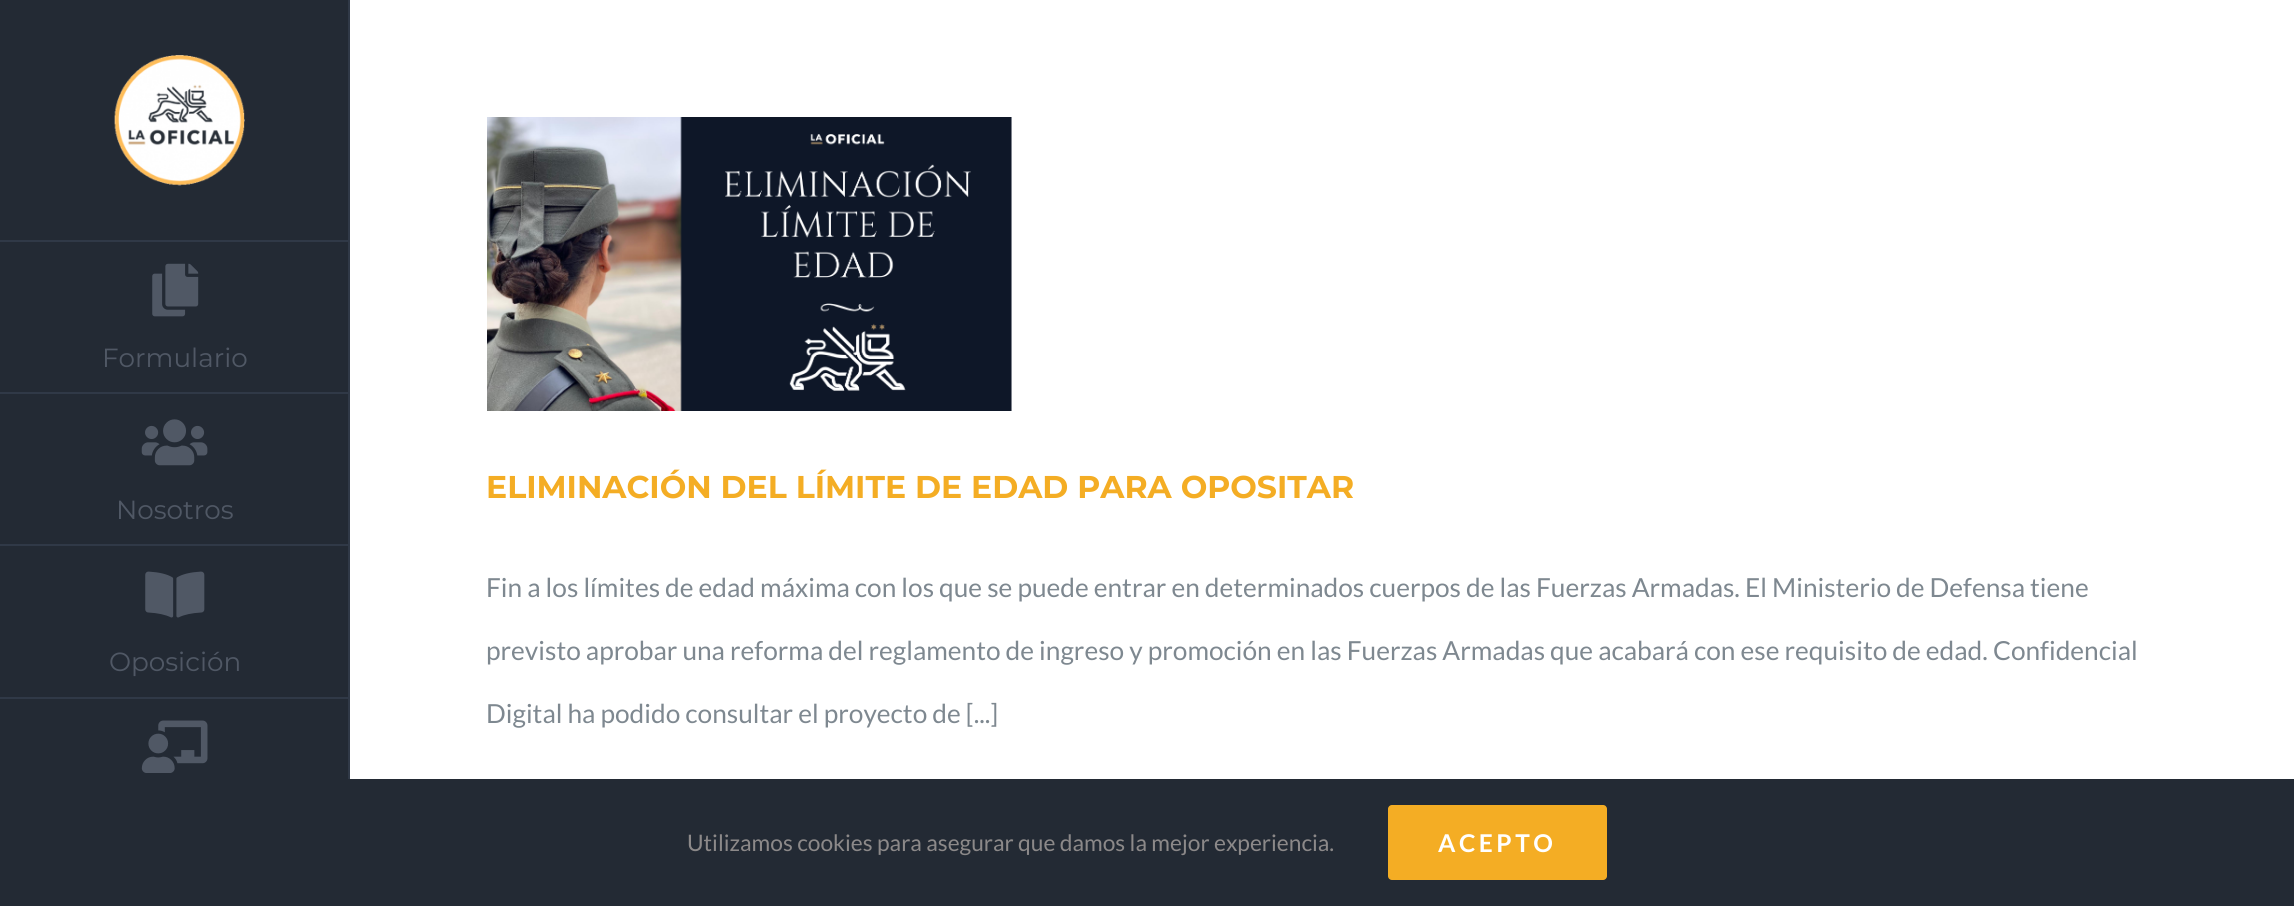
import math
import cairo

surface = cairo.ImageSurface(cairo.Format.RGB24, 2294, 906)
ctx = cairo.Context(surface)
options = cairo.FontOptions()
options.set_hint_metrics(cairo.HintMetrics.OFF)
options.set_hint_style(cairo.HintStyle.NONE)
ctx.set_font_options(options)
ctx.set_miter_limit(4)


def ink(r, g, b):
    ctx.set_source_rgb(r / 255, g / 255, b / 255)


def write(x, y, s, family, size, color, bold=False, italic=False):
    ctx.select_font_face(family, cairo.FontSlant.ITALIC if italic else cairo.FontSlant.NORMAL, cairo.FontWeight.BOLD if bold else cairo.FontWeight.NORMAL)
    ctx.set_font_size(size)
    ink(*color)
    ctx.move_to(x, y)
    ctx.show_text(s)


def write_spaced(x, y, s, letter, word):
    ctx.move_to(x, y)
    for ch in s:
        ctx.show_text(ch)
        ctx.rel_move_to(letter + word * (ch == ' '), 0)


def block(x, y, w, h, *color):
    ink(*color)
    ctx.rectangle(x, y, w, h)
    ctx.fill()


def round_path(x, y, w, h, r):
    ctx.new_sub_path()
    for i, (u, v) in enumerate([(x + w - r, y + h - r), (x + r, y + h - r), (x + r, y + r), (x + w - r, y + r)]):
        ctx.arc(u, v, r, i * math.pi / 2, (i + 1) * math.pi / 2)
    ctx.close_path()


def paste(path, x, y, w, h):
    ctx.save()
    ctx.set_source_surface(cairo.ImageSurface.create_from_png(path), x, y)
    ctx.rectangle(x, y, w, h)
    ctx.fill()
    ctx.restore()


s1 = dict(family="Montserrat", size=26.25, color=(80, 88, 101))
s2 = dict(family="Montserrat", size=31.5, color=(244, 173, 36), bold=True)
s3 = dict(family="Lato", size=26.25, color=(126, 136, 144))
s4 = dict(family="Lato", size=22.75, color=(140, 137, 137))

ink(255, 255, 255)
ctx.paint()
block(0, 0, 348, 779, 35, 42, 52)
block(348, 0, 2, 779, 48, 57, 71)
paste("pic1.png", 114, 55, 131, 131)
block(0, 240, 350, 2, 48, 57, 71)
block(0, 392, 350, 2, 48, 57, 71)
paste("pic2.png", 152, 263, 47, 54)
write(102, 367, "Formulario", **s1)
block(0, 544, 350, 2, 48, 57, 71)
paste("pic3.png", 141, 419, 67, 47)
write(116, 519, "Nosotros", **s1)
block(0, 697, 350, 2, 48, 57, 71)
paste("pic4.png", 145, 571, 60, 47)
write(109, 671, "Oposición", **s1)
paste("pic5.png", 141, 720, 67, 53)
paste("pic6.png", 487, 117, 525, 294)
write(486, 498, "ELIMINACIÓN DEL LÍMITE DE EDAD PARA OPOSITAR", **s2)
write(486, 597, "Fin a los límites de edad máxima con los que se puede entrar en determinados cuerpos de las Fuerzas Armadas. El Ministerio de Defensa tiene", **s3)
write(486, 660, "previsto aprobar una reforma del reglamento de ingreso y promoción en las Fuerzas Armadas que acabará con ese requisito de edad. Confidencial", **s3)
write(486, 723, "Digital ha podido consultar el proyecto de [...]", **s3)
block(0, 779, 2294, 127, 35, 42, 52)
write(687, 851, "Utilizamos cookies para asegurar que damos la mejor experiencia.", **s4)
ink(244, 173, 36)
round_path(1388, 805, 219, 75, 4)
ctx.fill()
ctx.select_font_face("Lato", cairo.FontSlant.NORMAL, cairo.FontWeight.BOLD)
ctx.set_font_size(24.5)
ink(255, 255, 255)
write_spaced(1438, 852, "ACEPTO", 3.5, 0)
surface.write_to_png("screenshot.png")
